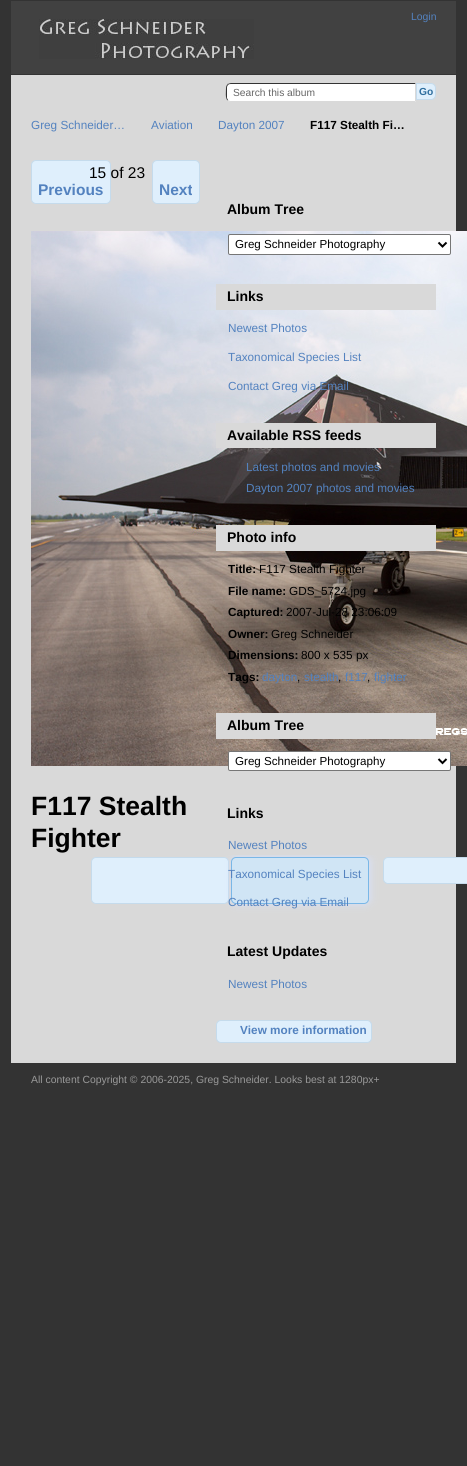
import math
import cairo

surface = cairo.ImageSurface(cairo.Format.RGB24, 467, 1466)
ctx = cairo.Context(surface)
options = cairo.FontOptions()
options.set_hint_metrics(cairo.HintMetrics.OFF)
options.set_hint_style(cairo.HintStyle.NONE)
ctx.set_font_options(options)
ctx.set_miter_limit(4)


def ink(r, g, b):
    ctx.set_source_rgb(r / 255, g / 255, b / 255)


def write(x, y, s, family, size, color, bold=False, italic=False):
    ctx.select_font_face(family, cairo.FontSlant.ITALIC if italic else cairo.FontSlant.NORMAL, cairo.FontWeight.BOLD if bold else cairo.FontWeight.NORMAL)
    ctx.set_font_size(size)
    ink(*color)
    ctx.move_to(x, y)
    ctx.show_text(s)


def block(x, y, w, h, *color):
    ink(*color)
    ctx.rectangle(x, y, w, h)
    ctx.fill()


def round_path(x, y, w, h, r):
    ctx.new_sub_path()
    for i, (u, v) in enumerate([(x + w - r, y + h - r), (x + r, y + h - r), (x + r, y + r), (x + w - r, y + r)]):
        ctx.arc(u, v, r, i * math.pi / 2, (i + 1) * math.pi / 2)
    ctx.close_path()


def blur_box(x, y, w, h, r, blur, alpha):
    ctx.push_group_with_content(cairo.Content.ALPHA)
    ctx.set_operator(cairo.Operator.SOURCE)
    for i in range(15, -16, -2):
        e = blur * i / 6
        if min(w, h) + 2 * e > 0:
            ctx.set_source_rgba(0, 0, 0, alpha * math.erfc((i - 1) / 8.5) / 2)
            round_path(x - e, y - e, w + 2 * e, h + 2 * e, max(0, min(r + e + blur * .6, min(w, h) / 2 + e)))
            ctx.fill()
    ctx.mask(ctx.pop_group())


def paste(path, x, y, w, h):
    ctx.save()
    ctx.set_source_surface(cairo.ImageSurface.create_from_png(path), x, y)
    ctx.rectangle(x, y, w, h)
    ctx.fill()
    ctx.restore()


s1 = dict(family="Liberation Sans", size=10.4, color=(83, 130, 191))
s2 = dict(family="Liberation Sans", size=10.25, color=(102, 102, 102))
s3 = dict(family="Liberation Sans", size=10.25, color=(46, 110, 158), bold=True)
s4 = dict(family="Liberation Sans", size=11.75, color=(83, 130, 191))
s5 = dict(family="Liberation Sans", size=11.75, color=(0, 0, 0), bold=True)
s6 = dict(family="Liberation Sans", size=15.5, color=(0, 0, 0))
s7 = dict(family="Liberation Sans", size=15.5, color=(83, 130, 191), bold=True)
s8 = dict(family="Liberation Sans", size=26.5, color=(0, 0, 0), bold=True)
s9 = dict(family="Liberation Sans", size=14, color=(0, 0, 0), bold=True)
s10 = dict(family="Liberation Sans", size=11.6, color=(0, 0, 0))
s11 = dict(family="Liberation Sans", size=11.75, color=(0, 0, 0))
s12 = dict(family="Liberation Sans", size=11.75, color=(83, 130, 191), bold=True)
s13 = dict(family="Liberation Sans", size=10.4, color=(153, 153, 153))

ink(51, 51, 51)
ctx.paint()
block(11, 75, 445, 988, 217, 217, 217)
block(11, 1, 445, 73, 65, 65, 65)
write(411, 20, "Login", **s1)
paste("pic1.png", 39, 19, 215, 40)
ink(255, 255, 255)
ctx.new_path()
ctx.move_to(231, 83)
ctx.line_to(416, 83)
ctx.line_to(416, 102)
ctx.line_to(231, 102)
ctx.curve_to(228, 102, 226, 100, 226, 97)
ctx.line_to(226, 88)
ctx.curve_to(226, 85, 228, 83, 231, 83)
ctx.close_path()
ctx.fill()
ink(51, 51, 51)
ctx.new_path()
ctx.move_to(231, 83)
ctx.curve_to(230, 83, 228, 84, 227, 84)
ctx.line_to(228, 85)
ctx.curve_to(229, 84, 230, 84, 231, 84)
ctx.line_to(415, 84)
ctx.line_to(416, 83)
ctx.close_path()
ctx.fill()
ink(217, 217, 217)
ctx.new_path()
ctx.move_to(416, 83)
ctx.line_to(415, 84)
ctx.line_to(415, 101)
ctx.line_to(416, 102)
ctx.close_path()
ctx.fill()
ctx.new_path()
ctx.move_to(416, 102)
ctx.line_to(415, 101)
ctx.line_to(230, 101)
ctx.line_to(228, 100)
ctx.line_to(227, 101)
ctx.curve_to(228, 102, 230, 102, 231, 102)
ctx.close_path()
ctx.fill()
ink(51, 51, 51)
ctx.new_path()
ctx.move_to(226, 88)
ctx.curve_to(226, 91, 225, 98.5, 227.5, 100.5)
ctx.line_to(228, 100)
ctx.line_to(227, 98)
ctx.line_to(227, 87.5)
ctx.curve_to(227, 86.5, 227.5, 85.5, 228, 85)
ctx.line_to(227.5, 84.5)
ctx.curve_to(226.5, 85, 226, 86.5, 226, 88)
ctx.close_path()
ctx.fill()
write(233, 96, "Search this album", **s2)
ink(223, 239, 252)
ctx.new_path()
ctx.move_to(416.5, 83.5)
ctx.line_to(431, 83.5)
ctx.curve_to(433.5, 83.5, 435.5, 85.5, 435.5, 88)
ctx.line_to(435.5, 95)
ctx.curve_to(435.5, 97.5, 433.5, 99.5, 431, 99.5)
ctx.line_to(416.5, 99.5)
ctx.close_path()
ctx.fill_preserve()
ink(197, 219, 236)
ctx.set_line_width(1)
ctx.stroke()
write(419, 95, "Go", **s3)
write(31, 129, "Greg Schneider…", **s4)
write(151, 129, "Aviation", **s4)
write(218, 129, "Dayton 2007", **s4)
write(310, 129, "F117 Stealth Fi…", **s5)
ink(223, 239, 252)
round_path(31.5, 160.5, 79, 43, 4.5)
ctx.fill_preserve()
ink(197, 219, 236)
ctx.stroke()
write(89, 178, "15 of 23", **s6)
write(38, 195, "Previous", **s7)
ink(223, 239, 252)
round_path(152.5, 160.5, 47, 43, 4.5)
ctx.fill_preserve()
ink(197, 219, 236)
ctx.stroke()
write(159, 195, "Next", **s7)
paste("pic2.png", 31, 231, 436, 535)
write(31, 815, "F117 Stealth", **s8)
write(31, 847, "Fighter", **s8)
ink(223, 239, 252)
round_path(91.5, 857.5, 137, 46, 4.5)
ctx.fill_preserve()
ink(197, 219, 236)
ctx.stroke()
ctx.save()
ctx.rectangle(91, 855, 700, 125)
ctx.clip()
ink(215, 225, 250)
blur_box(232, 857, 138, 47, 5, 4, 1)
ctx.restore()
ink(208, 229, 245)
round_path(231.5, 857.5, 137, 46, 4.5)
ctx.fill_preserve()
ink(121, 183, 231)
ctx.stroke()
ink(223, 239, 252)
round_path(383.5, 857.5, 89, 26, 4.5)
ctx.fill_preserve()
ink(197, 219, 236)
ctx.stroke()
write(227, 214, "Album Tree", **s9)
ink(255, 255, 255)
round_path(228.5, 234.5, 222, 20, 1.5)
ctx.fill_preserve()
ink(118, 118, 118)
ctx.stroke()
ctx.new_path()
ctx.move_to(438.5, 242.5)
ctx.line_to(442.5, 246.5)
ctx.line_to(446.5, 242.5)
ink(0, 0, 0)
ctx.set_line_width(2)
ctx.stroke()
write(235, 248, "Greg Schneider Photography", **s10)
block(216, 284, 220, 26, 217, 217, 217)
write(227, 301, "Links", **s9)
write(228, 332, "Newest Photos", **s4)
write(228, 361, "Taxonomical Species List", **s4)
write(228, 390, "Contact Greg via Email", **s4)
block(216, 423, 220, 25, 217, 217, 217)
write(227, 440, "Available RSS feeds", **s9)
write(246, 471, "Latest photos and movies", **s4)
write(246, 492, "Dayton 2007 photos and movies", **s4)
block(216, 525, 220, 26, 217, 217, 217)
write(227, 542, "Photo info", **s9)
write(228, 573, "Title:", **s5)
write(259, 573, "F117 Stealth Fighter", **s11)
write(228, 595, "File name:", **s5)
write(289, 595, "GDS_5724.jpg", **s11)
write(228, 616, "Captured:", **s5)
write(286, 616, "2007-Jul-28 23:06:09", **s11)
write(228, 638, "Owner:", **s5)
write(271, 638, "Greg Schneider", **s11)
write(228, 659, "Dimensions:", **s5)
write(301, 659, "800 x 535 px", **s11)
write(228, 681, "Tags:", **s5)
write(262, 681, "dayton", **s4)
write(297, 681, ",", **s11)
write(304, 681, "stealth", **s4)
write(338, 681, ",", **s11)
write(345, 681, "f117", **s4)
write(367, 681, ",", **s11)
write(374, 681, "fighter", **s4)
block(216, 713, 220, 26, 217, 217, 217)
write(227, 730, "Album Tree", **s9)
ink(255, 255, 255)
round_path(228.5, 751.5, 222, 19, 1.5)
ctx.fill_preserve()
ink(118, 118, 118)
ctx.set_line_width(1)
ctx.stroke()
ctx.new_path()
ctx.move_to(438.5, 759)
ctx.line_to(442.5, 763)
ctx.line_to(446.5, 759)
ink(0, 0, 0)
ctx.set_line_width(2)
ctx.stroke()
write(235, 765, "Greg Schneider Photography", **s10)
write(227, 818, "Links", **s9)
write(228, 849, "Newest Photos", **s4)
write(228, 878, "Taxonomical Species List", **s4)
write(228, 906, "Contact Greg via Email", **s4)
write(227, 956, "Latest Updates", **s9)
write(228, 988, "Newest Photos", **s4)
ink(223, 239, 252)
round_path(216.5, 1020.5, 155, 22, 4.5)
ctx.fill_preserve()
ink(197, 219, 236)
ctx.set_line_width(1)
ctx.stroke()
write(240, 1034, "View more information", **s12)
write(31, 1083, "All content Copyright © 2006-2025, Greg Schneider. Looks best at 1280px+", **s13)
surface.write_to_png("screenshot.png")
